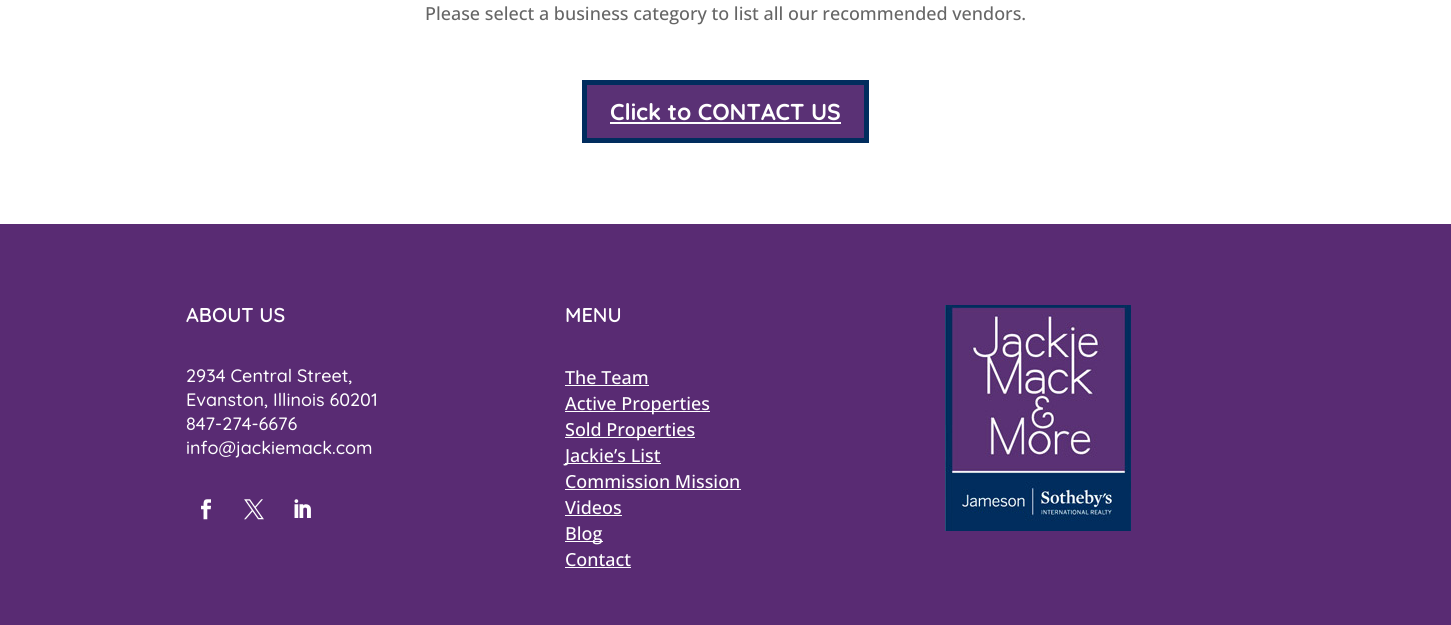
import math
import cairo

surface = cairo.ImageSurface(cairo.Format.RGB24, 1451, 625)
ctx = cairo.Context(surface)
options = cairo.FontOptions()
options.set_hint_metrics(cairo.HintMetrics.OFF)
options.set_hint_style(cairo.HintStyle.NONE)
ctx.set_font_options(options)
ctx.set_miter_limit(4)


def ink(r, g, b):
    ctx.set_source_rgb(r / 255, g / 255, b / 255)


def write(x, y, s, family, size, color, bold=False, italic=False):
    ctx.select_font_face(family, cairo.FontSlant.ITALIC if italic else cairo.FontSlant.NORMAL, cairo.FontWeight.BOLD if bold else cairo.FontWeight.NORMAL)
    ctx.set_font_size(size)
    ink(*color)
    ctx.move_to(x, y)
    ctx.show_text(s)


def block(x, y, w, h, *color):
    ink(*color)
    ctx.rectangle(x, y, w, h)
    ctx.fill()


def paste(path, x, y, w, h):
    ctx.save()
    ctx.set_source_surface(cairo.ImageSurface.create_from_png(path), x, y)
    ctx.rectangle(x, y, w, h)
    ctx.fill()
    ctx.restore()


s1 = dict(family="Open Sans Medium", size=18, color=(102, 102, 102))
s2 = dict(family="Quicksand Light", size=23, color=(255, 255, 255))
s3 = dict(family="Quicksand SemiBold", size=20, color=(255, 255, 255))
s4 = dict(family="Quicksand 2 Light", size=18, color=(255, 255, 255))
s5 = dict(family="Open Sans Medium", size=18, color=(255, 255, 255))

ink(255, 255, 255)
ctx.paint()
write(425, 20, "Please select a business category to list all our recommended vendors.", **s1)
block(587, 85, 277, 53, 90, 49, 117)
ctx.new_path()
ctx.move_to(584.5, 82.5)
ctx.line_to(866.5, 82.5)
ctx.line_to(866.5, 140.5)
ctx.line_to(584.5, 140.5)
ctx.close_path()
ink(1, 45, 94)
ctx.set_line_width(5)
ctx.stroke()
write(610, 120, "Click to CONTACT US", **s2)
block(610, 122, 231, 2, 255, 255, 255)
block(0, 224, 1451, 401, 89, 43, 115)
write(186, 322, "ABOUT US", **s3)
write(186, 382, "2934 Central Street,", **s4)
write(186, 406, "Evanston, Illinois 60201", **s4)
write(186, 430, "847-274-6676", **s4)
write(186, 454, "info@jackiemack.com", **s4)
paste("pic1.png", 201, 499, 10, 21)
paste("pic2.png", 244, 499, 20, 21)
paste("pic3.png", 294, 499, 17, 19)
write(565, 322, "MENU", **s3)
write(565, 384, "The Team", **s5)
block(565, 385, 84, 1, 255, 255, 255)
block(565, 411, 145, 1, 255, 255, 255)
write(565, 410, "Active Properties", **s5)
block(565, 437, 130, 1, 255, 255, 255)
write(565, 436, "Sold Properties", **s5)
block(565, 463, 96, 1, 255, 255, 255)
write(565, 462, "Jackie’s List", **s5)
write(565, 488, "Commission Mission", **s5)
block(565, 489, 176, 1, 255, 255, 255)
write(565, 514, "Videos", **s5)
block(565, 515, 57, 1, 255, 255, 255)
block(565, 541, 38, 1, 255, 255, 255)
write(565, 540, "Blog", **s5)
write(565, 566, "Contact", **s5)
block(565, 567, 66, 1, 255, 255, 255)
paste("pic4.png", 945, 305, 186, 226)
surface.write_to_png("screenshot.png")
